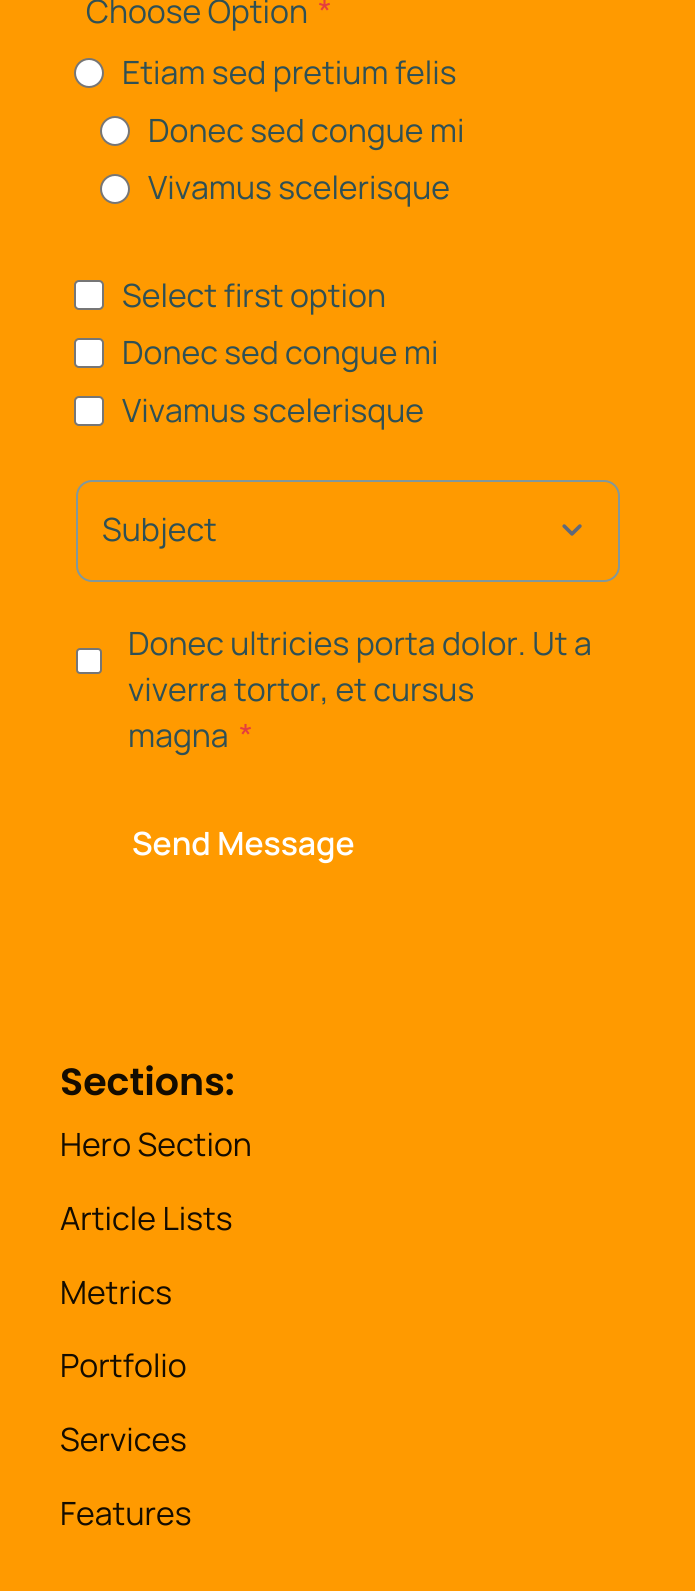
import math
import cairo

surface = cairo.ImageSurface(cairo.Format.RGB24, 695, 1591)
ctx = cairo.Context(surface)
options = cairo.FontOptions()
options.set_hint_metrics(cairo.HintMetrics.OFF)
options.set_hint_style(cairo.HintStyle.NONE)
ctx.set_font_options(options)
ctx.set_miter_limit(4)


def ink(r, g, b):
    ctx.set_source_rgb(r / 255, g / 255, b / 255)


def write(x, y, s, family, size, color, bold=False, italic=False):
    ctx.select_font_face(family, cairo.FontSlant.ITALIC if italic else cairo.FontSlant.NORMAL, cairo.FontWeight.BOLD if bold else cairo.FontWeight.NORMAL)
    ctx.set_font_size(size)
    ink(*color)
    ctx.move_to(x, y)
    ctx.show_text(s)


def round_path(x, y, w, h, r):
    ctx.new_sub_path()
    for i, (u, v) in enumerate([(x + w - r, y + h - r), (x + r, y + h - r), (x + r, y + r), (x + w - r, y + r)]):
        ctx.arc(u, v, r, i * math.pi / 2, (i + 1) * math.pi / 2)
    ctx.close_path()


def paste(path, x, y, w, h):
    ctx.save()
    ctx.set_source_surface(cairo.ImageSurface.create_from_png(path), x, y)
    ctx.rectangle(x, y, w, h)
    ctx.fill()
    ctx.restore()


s1 = dict(family="Manrope", size=32, color=(47, 80, 85))
s2 = dict(family="Manrope", size=32, color=(229, 62, 62))
s3 = dict(family="Manrope SemiBold", size=32, color=(255, 255, 255))
s4 = dict(family="Poppins SemiBold", size=38, color=(20, 12, 0))
s5 = dict(family="Manrope", size=32, color=(20, 12, 0))

ink(255, 154, 0)
ctx.paint()
write(86, 23, "Choose Option", **s1)
write(318, 23, "*", **s2)
ink(255, 255, 255)
ctx.new_path()
ctx.arc(89, 73, 14, 0, 2 * math.pi)
ctx.fill_preserve()
ink(118, 118, 118)
ctx.stroke()
write(122, 84, "Etiam sed pretium felis", **s1)
ink(255, 255, 255)
ctx.new_path()
ctx.arc(115, 131, 14, 0, 2 * math.pi)
ctx.fill_preserve()
ink(118, 118, 118)
ctx.stroke()
write(148, 142, "Donec sed congue mi", **s1)
ink(255, 255, 255)
ctx.new_path()
ctx.arc(115, 189, 14, 0, 2 * math.pi)
ctx.fill_preserve()
ink(118, 118, 118)
ctx.stroke()
write(148, 199, "Vivamus scelerisque", **s1)
ink(255, 255, 255)
round_path(75, 281, 28, 28, 4)
ctx.fill_preserve()
ink(118, 118, 118)
ctx.stroke()
write(122, 307, "Select first option", **s1)
ink(255, 255, 255)
round_path(75, 339, 28, 28, 4)
ctx.fill_preserve()
ink(118, 118, 118)
ctx.stroke()
write(122, 364, "Donec sed congue mi", **s1)
ink(255, 255, 255)
round_path(75, 397, 28, 28, 4)
ctx.fill_preserve()
ink(118, 118, 118)
ctx.stroke()
write(122, 422, "Vivamus scelerisque", **s1)
paste("pic1.png", 562, 524, 20, 12)
round_path(77, 481, 542, 100, 15)
ink(130, 152, 155)
ctx.stroke()
write(102, 541, "Subject", **s1)
ink(255, 255, 255)
round_path(77, 649, 24, 24, 3)
ctx.fill_preserve()
ink(118, 118, 118)
ctx.stroke()
write(128, 655, "Donec ultricies porta dolor. Ut a", **s1)
write(128, 701, "viverra tortor, et cursus", **s1)
write(128, 747, "magna", **s1)
write(239, 747, "*", **s2)
write(132, 855, "Send Message", **s3)
write(60, 1095, "Sections:", **s4)
write(60, 1156, "Hero Section", **s5)
write(60, 1230, "Article Lists", **s5)
write(60, 1304, "Metrics", **s5)
write(60, 1377, "Portfolio", **s5)
write(60, 1451, "Services", **s5)
write(60, 1525, "Features", **s5)
surface.write_to_png("screenshot.png")
